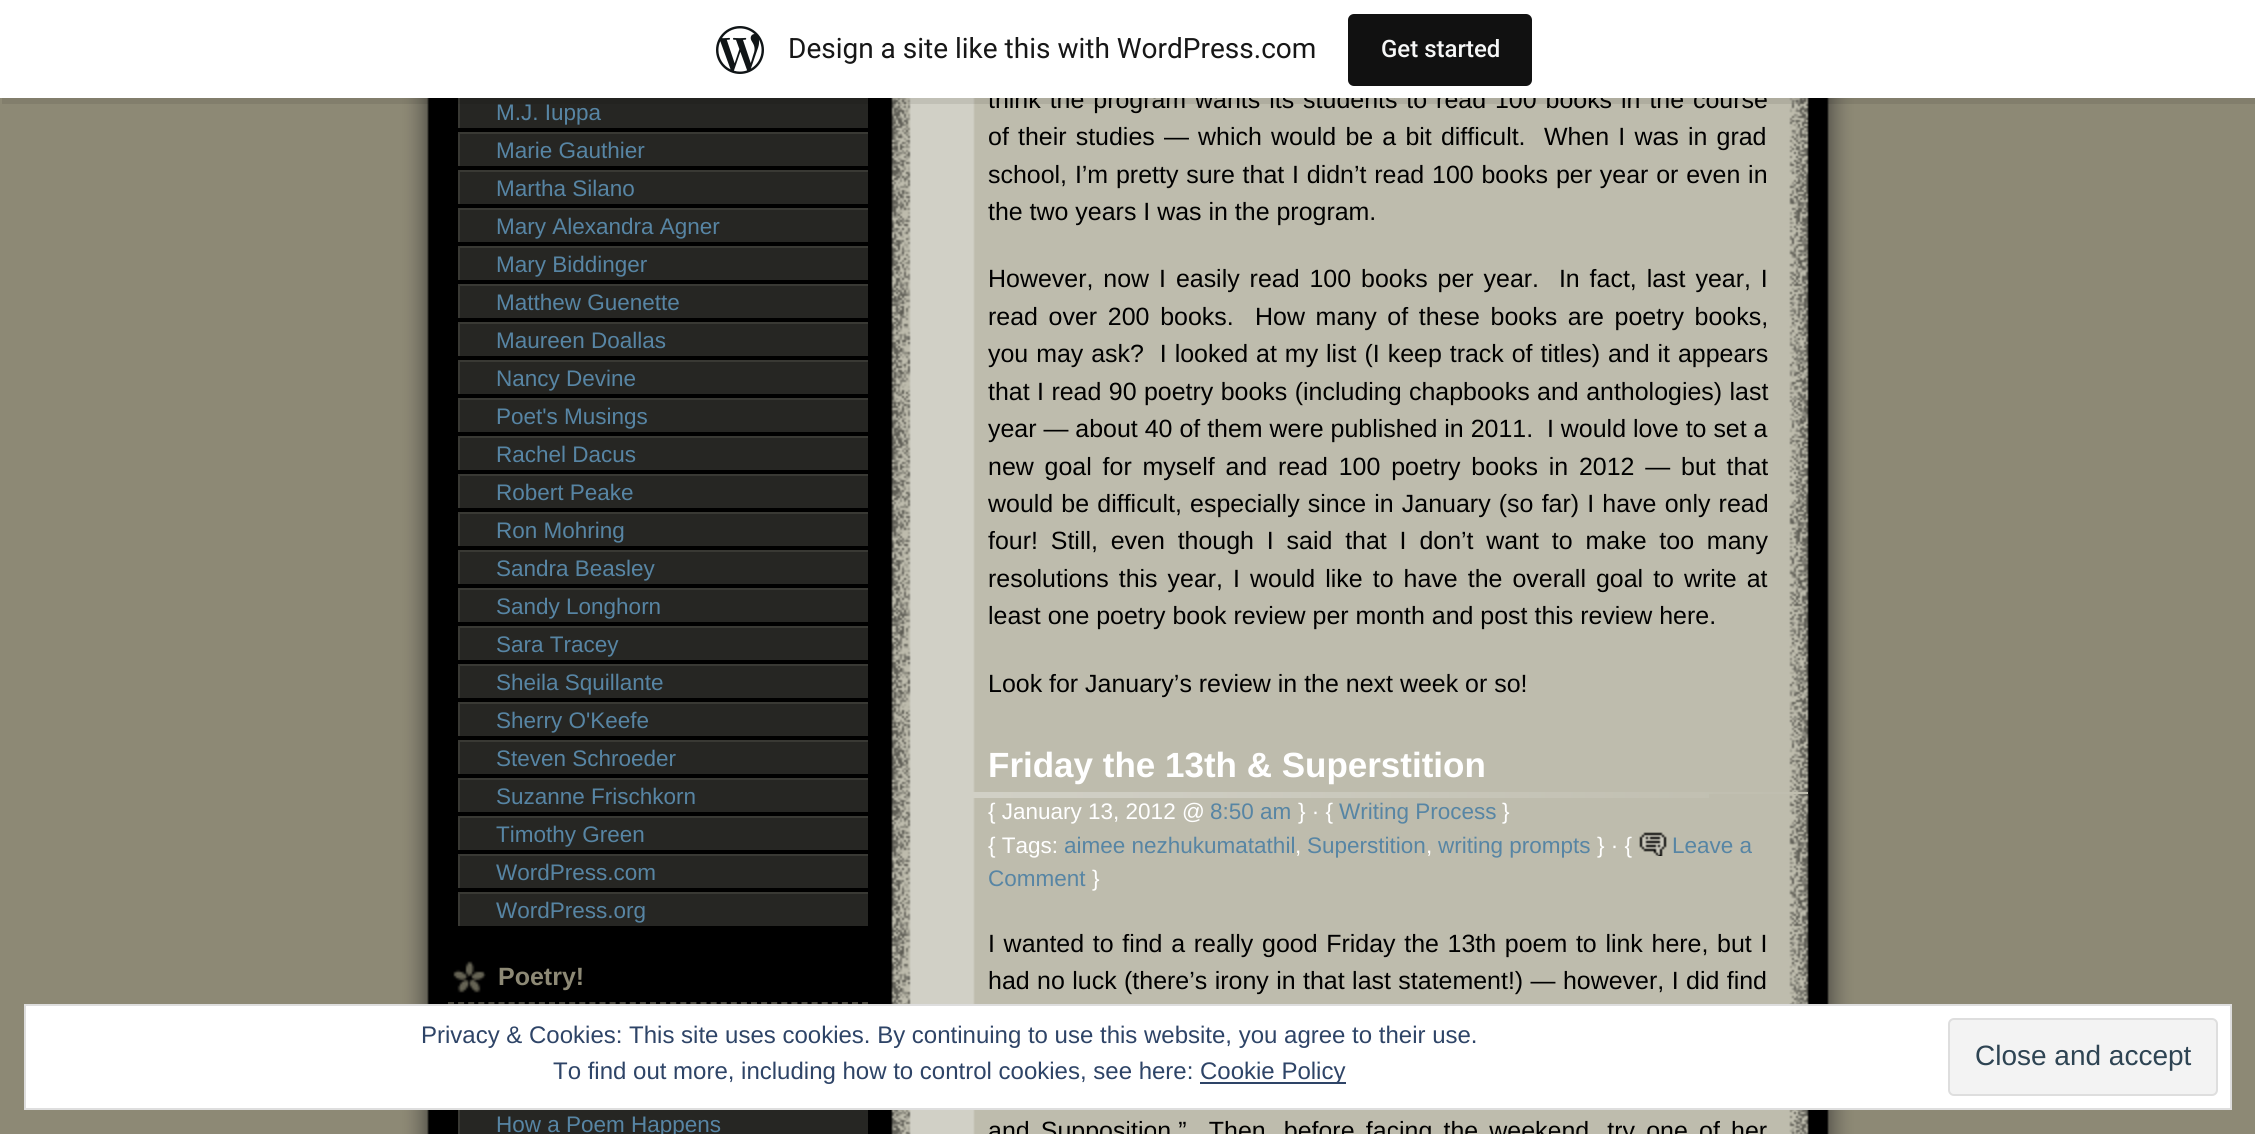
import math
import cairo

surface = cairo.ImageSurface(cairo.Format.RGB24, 2255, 1134)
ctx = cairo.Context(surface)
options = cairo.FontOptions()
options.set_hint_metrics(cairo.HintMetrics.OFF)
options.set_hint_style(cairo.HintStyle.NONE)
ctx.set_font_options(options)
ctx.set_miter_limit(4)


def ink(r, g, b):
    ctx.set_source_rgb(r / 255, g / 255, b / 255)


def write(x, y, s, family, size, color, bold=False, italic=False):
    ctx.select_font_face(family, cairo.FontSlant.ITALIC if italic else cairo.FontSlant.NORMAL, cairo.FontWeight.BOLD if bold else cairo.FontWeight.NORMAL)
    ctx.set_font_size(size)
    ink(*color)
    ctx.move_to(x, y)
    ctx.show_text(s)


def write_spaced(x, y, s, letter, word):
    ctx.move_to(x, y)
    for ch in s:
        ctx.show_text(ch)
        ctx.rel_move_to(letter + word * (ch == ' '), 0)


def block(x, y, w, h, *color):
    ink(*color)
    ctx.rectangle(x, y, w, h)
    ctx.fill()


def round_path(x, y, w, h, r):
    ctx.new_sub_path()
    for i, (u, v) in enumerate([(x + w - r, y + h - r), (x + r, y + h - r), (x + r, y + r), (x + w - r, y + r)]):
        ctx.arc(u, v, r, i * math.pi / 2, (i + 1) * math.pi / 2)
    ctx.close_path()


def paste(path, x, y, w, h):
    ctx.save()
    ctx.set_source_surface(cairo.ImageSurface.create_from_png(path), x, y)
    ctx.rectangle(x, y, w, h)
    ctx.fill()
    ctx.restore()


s1 = dict(family="Roboto", size=28, color=(23, 23, 23))
s2 = dict(family="Roboto Medium", size=24, color=(246, 247, 247))
s3 = dict(family="Liberation Sans", size=22.5, color=(87, 133, 164))
s4 = dict(family="Liberation Sans", size=25, color=(141, 137, 117), bold=True)
s5 = dict(family="Liberation Sans", size=24.95, color=(0, 0, 0))
s6 = dict(family="Liberation Sans", size=35, color=(255, 255, 255), bold=True)
s7 = dict(family="Liberation Sans", size=22.5, color=(255, 255, 255))
s8 = dict(family="Liberation Sans", size=24, color=(46, 68, 103))
s9 = dict(family="Liberation Sans", size=28, color=(46, 68, 83))

ink(141, 137, 117)
ctx.paint()
paste("pic2.png", 388, 98, 1480, 1036)
block(460, 98, 408, 30, 38, 38, 35)
block(458, 94, 2, 34, 57, 57, 52)
ctx.set_source_rgba(0, 0, 0, 0.08)
ctx.new_path()
ctx.move_to(2, 98)
ctx.line_to(2, 104)
ctx.line_to(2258, 104)
ctx.line_to(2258, 6)
ctx.line_to(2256, 6)
ctx.line_to(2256, 98)
ctx.close_path()
ctx.fill()
ctx.select_font_face("Liberation Sans")
ctx.set_font_size(24.95)
ink(0, 0, 0)
write_spaced(988, 108, "think the program wants its students to read 100 books in the course", 0, 2)
block(0, 0, 2255, 98, 255, 255, 255)
paste("pic1.png", 716, 26, 48, 48)
write(788, 58, "Design a site like this with WordPress.com", **s1)
ink(17, 17, 17)
round_path(1348, 14, 184, 72, 6)
ctx.fill()
write(1381, 57, "Get started", **s2)
write(496, 120, "M.J. Iuppa", **s3)
block(460, 134, 408, 32, 38, 38, 35)
block(458, 132, 410, 2, 57, 57, 52)
block(458, 132, 2, 34, 57, 57, 52)
write(496, 158, "Marie Gauthier", **s3)
block(460, 172, 408, 32, 38, 38, 35)
block(458, 170, 410, 2, 57, 57, 52)
block(458, 170, 2, 34, 57, 57, 52)
write(496, 196, "Martha Silano", **s3)
block(460, 210, 408, 32, 38, 38, 35)
block(458, 208, 410, 2, 57, 57, 52)
block(458, 208, 2, 34, 57, 57, 52)
write(496, 234, "Mary Alexandra Agner", **s3)
block(460, 248, 408, 32, 38, 38, 35)
block(458, 246, 410, 2, 57, 57, 52)
block(458, 246, 2, 34, 57, 57, 52)
write(496, 272, "Mary Biddinger", **s3)
block(460, 286, 408, 32, 38, 38, 35)
block(458, 284, 410, 2, 57, 57, 52)
block(458, 284, 2, 34, 57, 57, 52)
write(496, 310, "Matthew Guenette", **s3)
block(460, 324, 408, 32, 38, 38, 35)
block(458, 322, 410, 2, 57, 57, 52)
block(458, 322, 2, 34, 57, 57, 52)
write(496, 348, "Maureen Doallas", **s3)
block(460, 362, 408, 32, 38, 38, 35)
block(458, 360, 410, 2, 57, 57, 52)
block(458, 360, 2, 34, 57, 57, 52)
write(496, 386, "Nancy Devine", **s3)
block(460, 400, 408, 32, 38, 38, 35)
block(458, 398, 410, 2, 57, 57, 52)
block(458, 398, 2, 34, 57, 57, 52)
write(496, 424, "Poet's Musings", **s3)
block(460, 438, 408, 32, 38, 38, 35)
block(458, 436, 410, 2, 57, 57, 52)
block(458, 436, 2, 34, 57, 57, 52)
write(496, 462, "Rachel Dacus", **s3)
block(460, 476, 408, 32, 38, 38, 35)
block(458, 474, 410, 2, 57, 57, 52)
block(458, 474, 2, 34, 57, 57, 52)
write(496, 500, "Robert Peake", **s3)
block(460, 514, 408, 32, 38, 38, 35)
block(458, 512, 410, 2, 57, 57, 52)
block(458, 512, 2, 34, 57, 57, 52)
write(496, 538, "Ron Mohring", **s3)
block(460, 552, 408, 32, 38, 38, 35)
block(458, 550, 410, 2, 57, 57, 52)
block(458, 550, 2, 34, 57, 57, 52)
write(496, 576, "Sandra Beasley", **s3)
block(460, 590, 408, 32, 38, 38, 35)
block(458, 588, 410, 2, 57, 57, 52)
block(458, 588, 2, 34, 57, 57, 52)
write(496, 614, "Sandy Longhorn", **s3)
block(460, 628, 408, 32, 38, 38, 35)
block(458, 626, 410, 2, 57, 57, 52)
block(458, 626, 2, 34, 57, 57, 52)
write(496, 652, "Sara Tracey", **s3)
block(460, 666, 408, 32, 38, 38, 35)
block(458, 664, 410, 2, 57, 57, 52)
block(458, 664, 2, 34, 57, 57, 52)
write(496, 690, "Sheila Squillante", **s3)
block(460, 704, 408, 32, 38, 38, 35)
block(458, 702, 410, 2, 57, 57, 52)
block(458, 702, 2, 34, 57, 57, 52)
write(496, 728, "Sherry O'Keefe", **s3)
block(460, 742, 408, 32, 38, 38, 35)
block(458, 740, 410, 2, 57, 57, 52)
block(458, 740, 2, 34, 57, 57, 52)
write(496, 766, "Steven Schroeder", **s3)
block(460, 780, 408, 32, 38, 38, 35)
block(458, 778, 410, 2, 57, 57, 52)
block(458, 778, 2, 34, 57, 57, 52)
write(496, 804, "Suzanne Frischkorn", **s3)
block(460, 818, 408, 32, 38, 38, 35)
block(458, 816, 410, 2, 57, 57, 52)
block(458, 816, 2, 34, 57, 57, 52)
write(496, 842, "Timothy Green", **s3)
block(460, 856, 408, 32, 38, 38, 35)
block(458, 854, 410, 2, 57, 57, 52)
block(458, 854, 2, 34, 57, 57, 52)
write(496, 880, "WordPress.com", **s3)
block(460, 894, 408, 32, 38, 38, 35)
block(458, 892, 410, 2, 57, 57, 52)
block(458, 892, 2, 34, 57, 57, 52)
write(496, 918, "WordPress.org", **s3)
paste("pic3.png", 453, 961, 33, 32)
ctx.new_path()
ctx.move_to(448, 1003)
ctx.line_to(868, 1003)
ink(74, 72, 61)
ctx.set_dash([6, 4.1])
ctx.stroke()
write(498, 985, "Poetry!", **s4)
block(460, 1110, 408, 24, 38, 38, 35)
block(458, 1106, 2, 28, 57, 57, 52)
write(496, 1132, "How a Poem Happens", **s3)
ctx.set_font_size(24.95)
ink(0, 0, 0)
write_spaced(988, 145, "of their studies — which would be a bit difficult.  When I was in grad", 0, 2.25)
write_spaced(988, 183, "school, I’m pretty sure that I didn’t read 100 books per year or even in", 0, 0.9)
write(988, 220, "the two years I was in the program.", **s5)
write_spaced(988, 287, "However, now I easily read 100 books per year.  In fact, last year, I", 0, 3)
write_spaced(988, 325, "read over 200 books.  How many of these books are poetry books,", 0, 3.75)
write_spaced(988, 362, "you may ask?  I looked at my list (I keep track of titles) and it appears", 0, 1)
write_spaced(988, 400, "that I read 90 poetry books (including chapbooks and anthologies) last", 0, 0.5)
write(988, 437, "year — about 40 of them were published in 2011.  I would love to set a", **s5)
write_spaced(988, 475, "new goal for myself and read 100 poetry books in 2012 — but that", 0, 3.9)
write_spaced(988, 512, "would be difficult, especially since in January (so far) I have only read", 0, 1.25)
write_spaced(988, 549, "four! Still, even though I said that I don’t want to make too many", 0, 5.9)
write_spaced(988, 587, "resolutions this year, I would like to have the overall goal to write at", 0, 3.1)
write(988, 624, "least one poetry book review per month and post this review here.", **s5)
write(988, 692, "Look for January’s review in the next week or so!", **s5)
paste("pic4.png", 973, 792, 835, 2)
write(988, 777, "Friday the 13th & Superstition", **s6)
paste("pic5.png", 973, 794, 736, 4)
write(988, 819, "{ January 13, 2012 @", **s7)
write(1210, 819, "8:50 am", **s3)
write(1298, 819, "} · {", **s7)
write(1339, 819, "Writing Process", **s3)
write(1502, 819, "}", **s7)
write(988, 853, "{ Tags:", **s7)
write(1064, 853, "aimee nezhukumatathil", **s3)
write(1295, 853, ",", **s7)
write(1307, 853, "Superstition", **s3)
write(1426, 853, ",", **s7)
write(1438, 853, "writing prompts", **s3)
write(1597, 853, "} · {", **s7)
paste("pic6.png", 1639, 832, 28, 24)
write(1672, 853, "Leave a", **s3)
write(988, 886, "Comment", **s3)
write(1092, 886, "}", **s7)
ctx.set_font_size(24.95)
ink(0, 0, 0)
write_spaced(988, 952, "I wanted to find a really good Friday the 13th poem to link here, but I", 0, 1.75)
write_spaced(988, 989, "had no luck (there’s irony in that last statement!) — however, I did find", 0, 0.5)
write_spaced(988, 1139, "and Supposition.”  Then, before facing the weekend, try one of her", 0, 4.25)
ink(255, 255, 255)
ctx.rectangle(25, 1005, 2206, 104)
ctx.fill_preserve()
ink(222, 222, 222)
ctx.set_dash([])
ctx.stroke()
write(421, 1043, "Privacy & Cookies: This site uses cookies. By continuing to use this website, you agree to their use.", **s8)
write(553, 1079, "To find out more, including how to control cookies, see here:", **s8)
block(1200, 1082, 146, 2, 46, 68, 103)
write(1200, 1079, "Cookie Policy", **s8)
ink(243, 243, 243)
round_path(1949, 1019, 268, 76, 5)
ctx.fill_preserve()
ink(222, 222, 222)
ctx.stroke()
write(1975, 1065, "Close and accept", **s9)
surface.write_to_png("screenshot.png")
